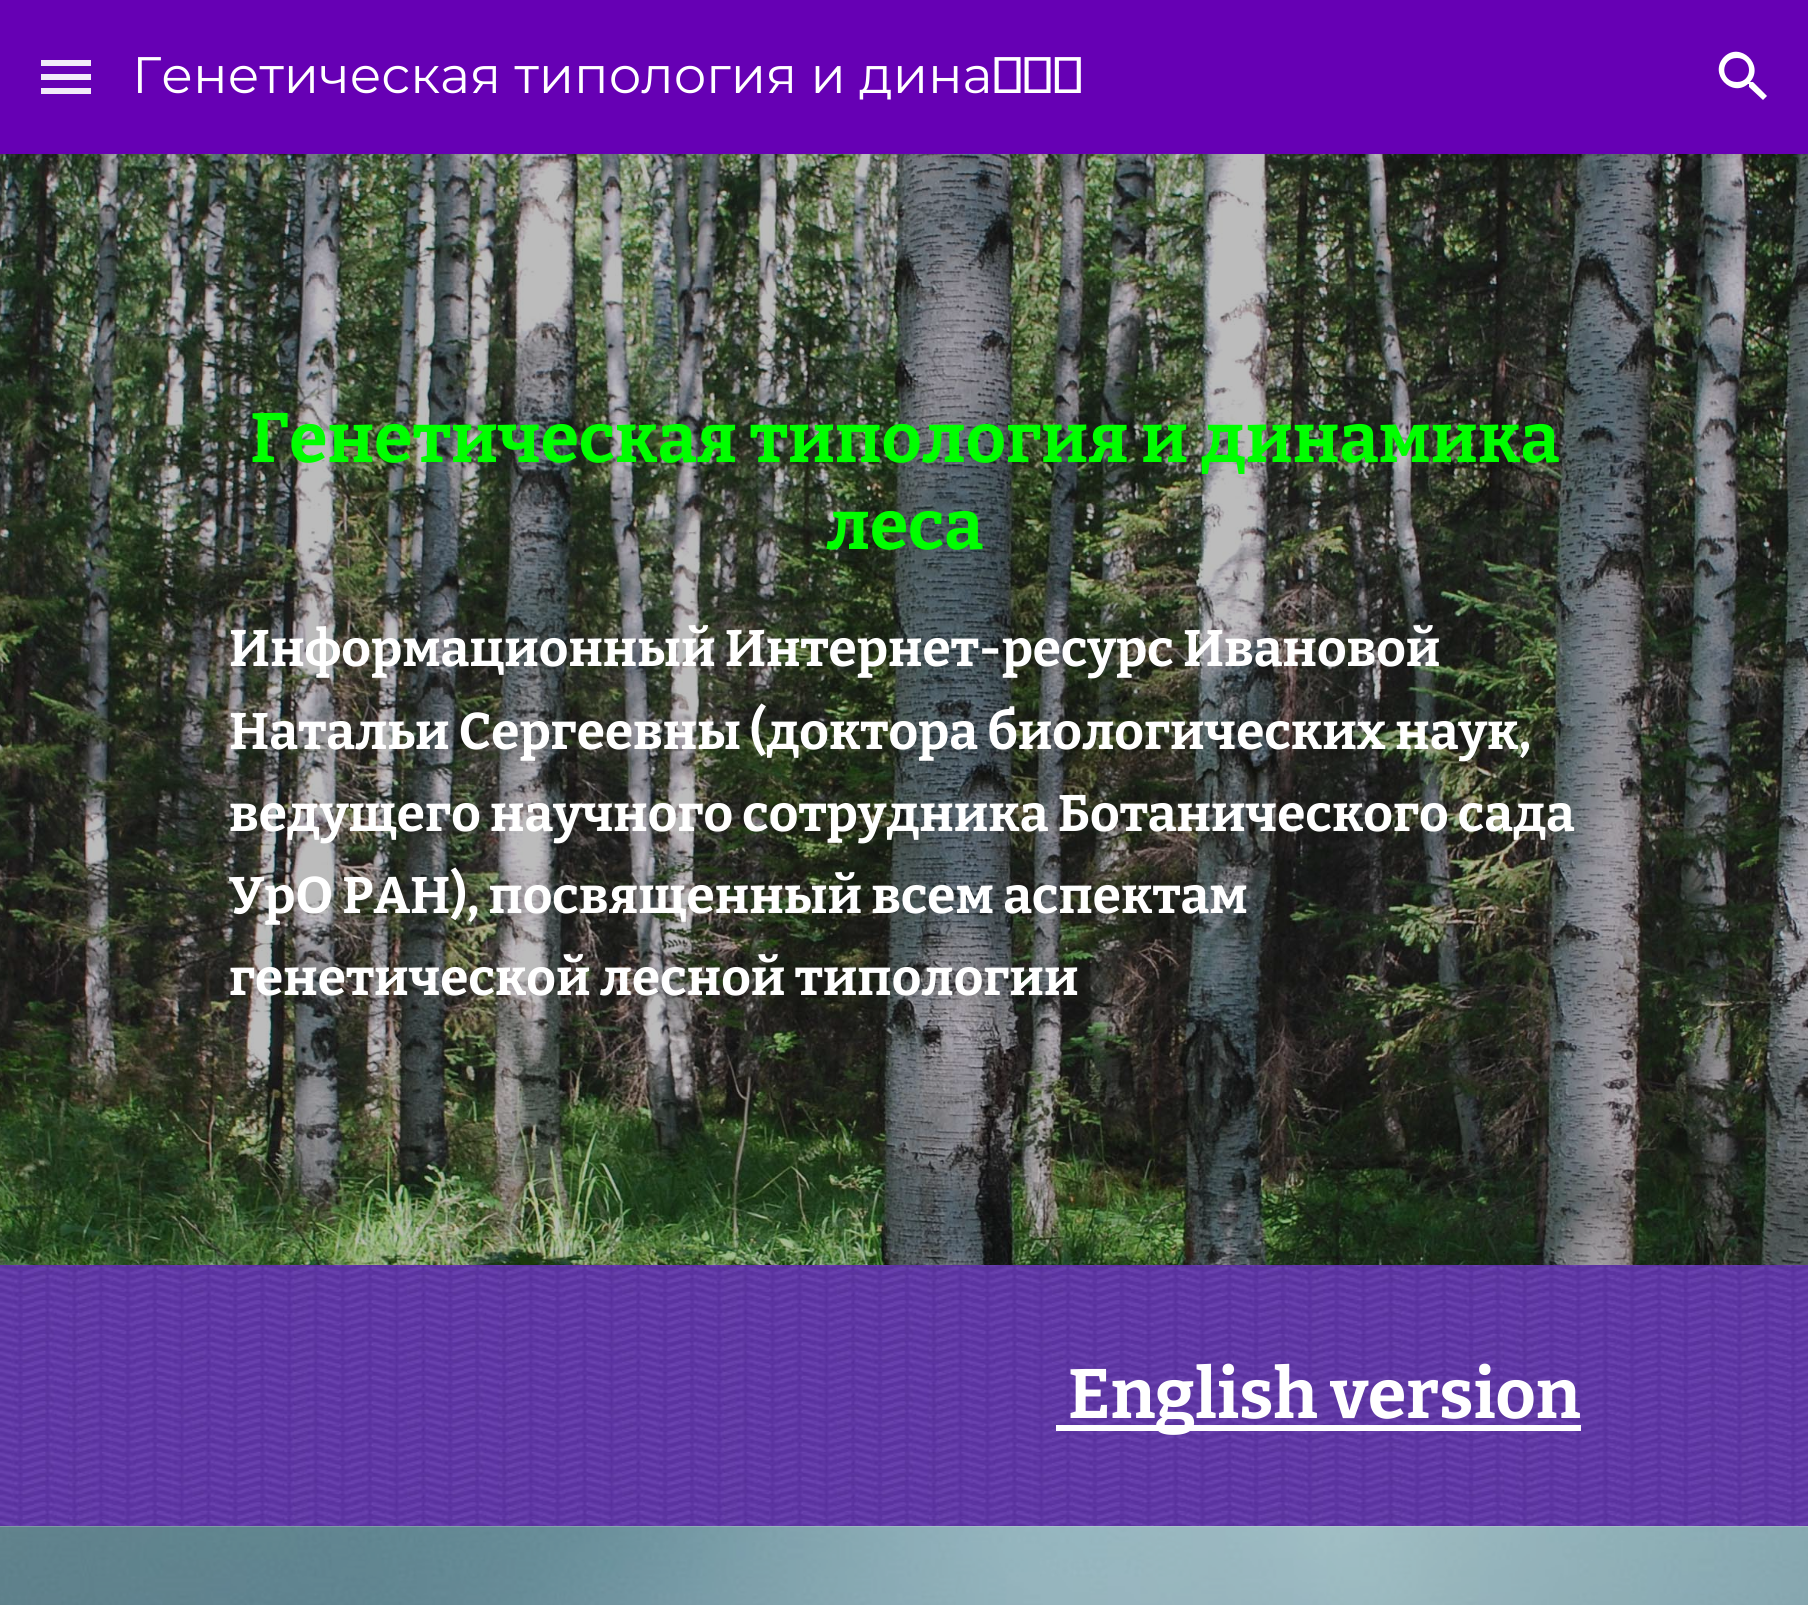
import math
import cairo

surface = cairo.ImageSurface(cairo.Format.RGB24, 1808, 1605)
ctx = cairo.Context(surface)
options = cairo.FontOptions()
options.set_hint_metrics(cairo.HintMetrics.OFF)
options.set_hint_style(cairo.HintStyle.NONE)
ctx.set_font_options(options)
ctx.set_miter_limit(4)


def ink(r, g, b):
    ctx.set_source_rgb(r / 255, g / 255, b / 255)


def write(x, y, s, family, size, color, bold=False, italic=False):
    ctx.select_font_face(family, cairo.FontSlant.ITALIC if italic else cairo.FontSlant.NORMAL, cairo.FontWeight.BOLD if bold else cairo.FontWeight.NORMAL)
    ctx.set_font_size(size)
    ink(*color)
    ctx.move_to(x, y)
    ctx.show_text(s)


def block(x, y, w, h, *color):
    ink(*color)
    ctx.rectangle(x, y, w, h)
    ctx.fill()


def paste(path, x, y, w, h):
    ctx.save()
    ctx.set_source_surface(cairo.ImageSurface.create_from_png(path), x, y)
    ctx.rectangle(x, y, w, h)
    ctx.fill()
    ctx.restore()


s1 = dict(family="Montserrat", size=51.3, color=(255, 255, 255))
s2 = dict(family="Bitter", size=69.7, color=(0, 255, 0), bold=True)
s3 = dict(family="Bitter", size=51.3, color=(255, 255, 255), bold=True)
s4 = dict(family="Bitter", size=69.7, color=(255, 255, 255), bold=True)

ink(255, 255, 255)
ctx.paint()
block(0, 0, 1808, 154, 102, 0, 180)
block(41, 60, 50, 6, 242, 234, 249)
block(41, 74, 50, 6, 242, 234, 249)
block(41, 88, 50, 6, 242, 234, 249)
write(132, 93, "Генетическая типология и дина...", **s1)
ctx.new_path()
ctx.move_to(1753, 82)
ctx.line_to(1751, 82)
ctx.line_to(1750, 82)
ctx.curve_to(1765, 65, 1740, 41, 1724, 57)
ctx.curve_to(1708, 74, 1732, 98, 1748, 84)
ctx.line_to(1749, 84)
ctx.line_to(1749, 87)
ctx.line_to(1763, 100)
ctx.line_to(1767, 96)
ctx.close_path()
ctx.move_to(1737, 82)
ctx.curve_to(1720, 82, 1720, 58, 1737, 58)
ctx.curve_to(1753, 58, 1753, 82, 1737, 82)
ctx.close_path()
ctx.fill()
paste("pic1.png", 0, 154, 1808, 1111)
write(250, 462, "Генетическая типология и динамика", **s2)
write(826, 549, "леса", **s2)
write(229, 666, "Информационный Интернет-ресурс Ивановой", **s3)
write(229, 749, "Натальи Сергеевны (доктора биологических наук,", **s3)
write(229, 831, "ведущего научного сотрудника Ботанического сада", **s3)
write(229, 913, "УрО РАН), посвященный всем аспектам", **s3)
write(229, 995, "генетической лесной типологии", **s3)
paste("pic2.png", 0, 1265, 1808, 262)
block(1056, 1425, 525, 6, 255, 255, 255)
write(1068, 1418, "English version", **s4)
paste("pic3.png", 0, 1526, 1808, 79)
ctx.set_source_rgba(1, 1, 1, 0.3)
ctx.rectangle(0, 1526, 1808, 79)
ctx.fill()
surface.write_to_png("screenshot.png")
